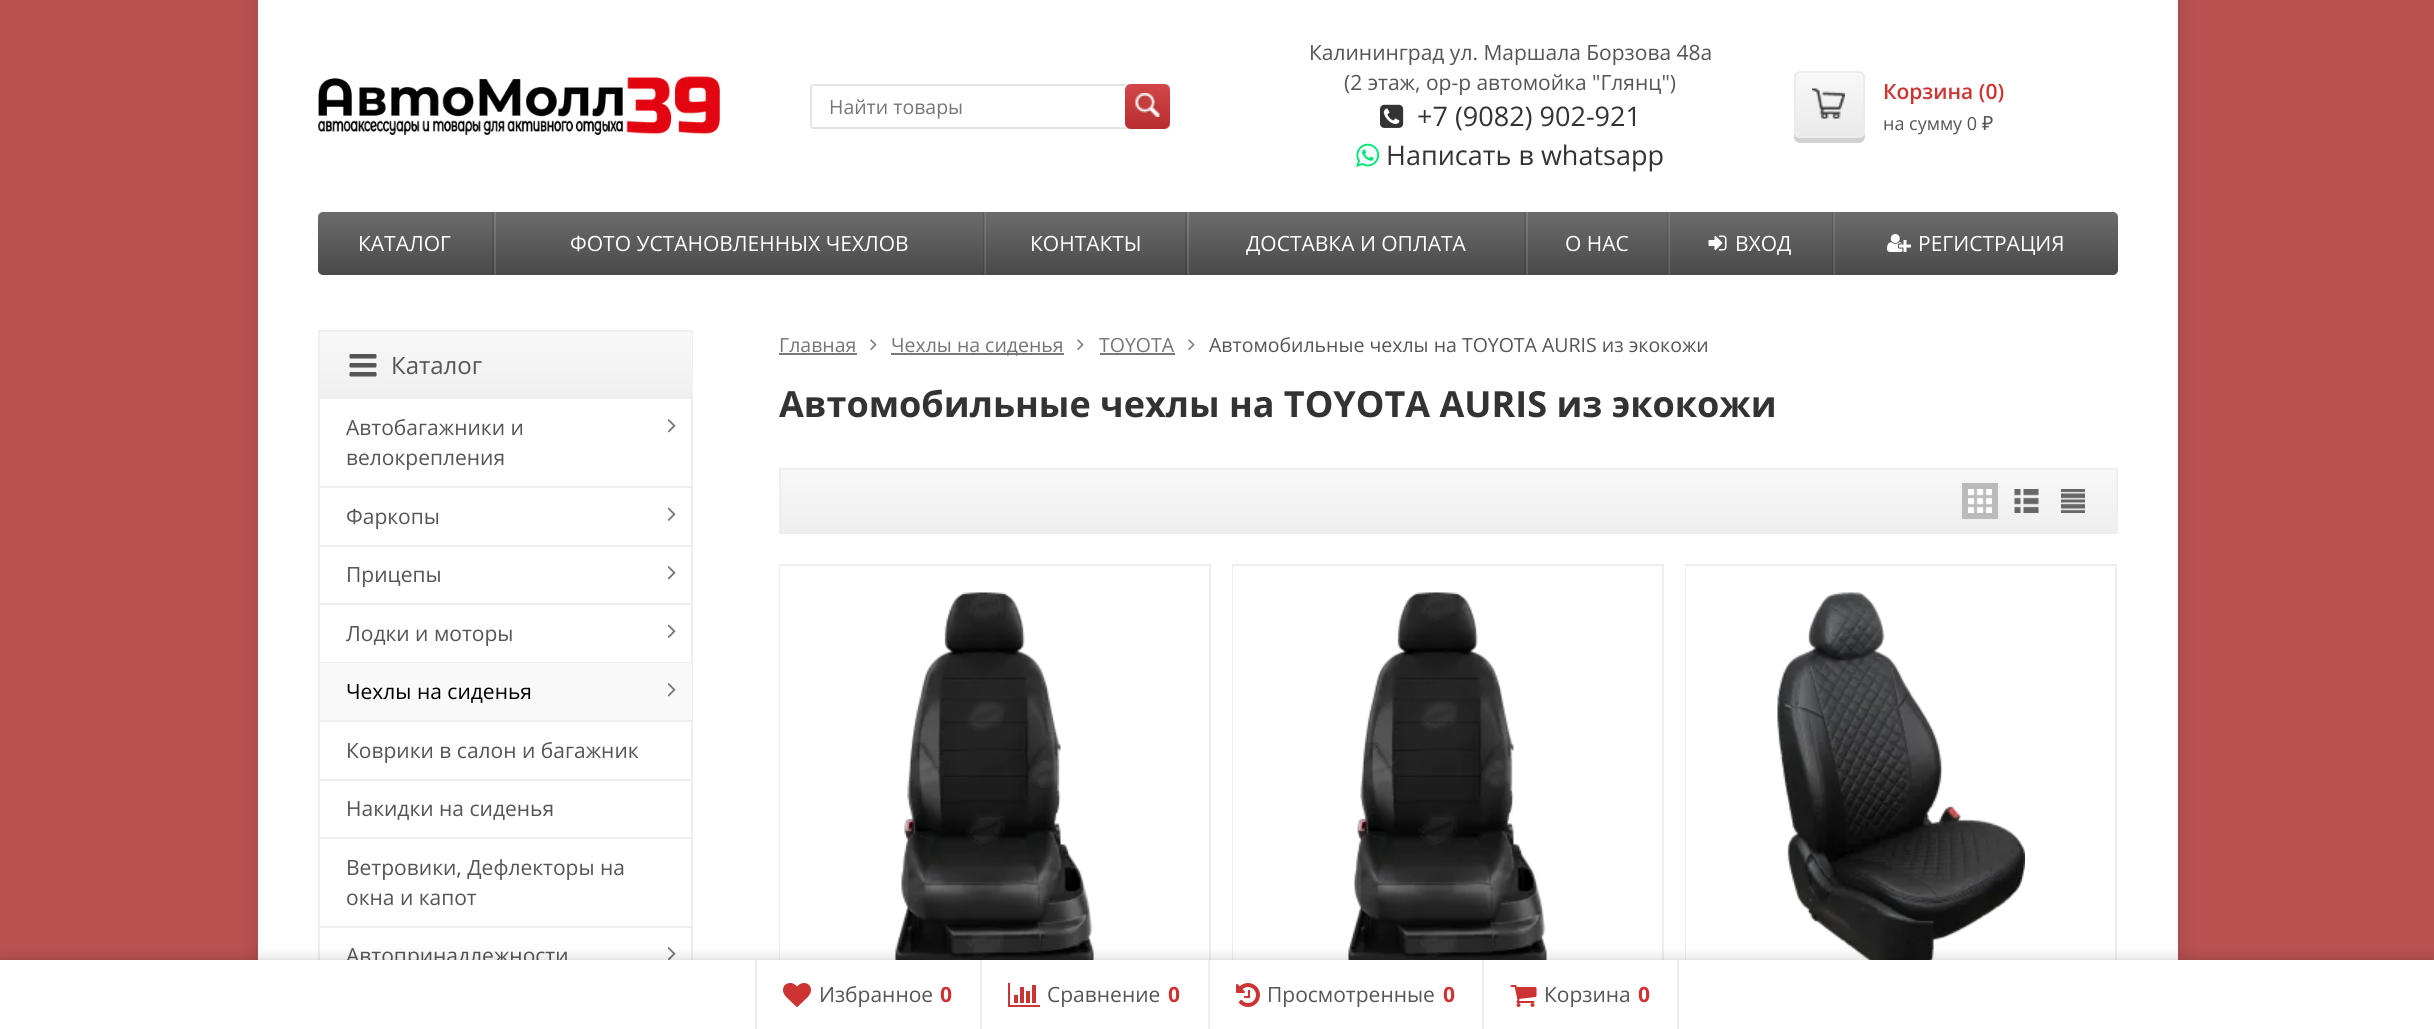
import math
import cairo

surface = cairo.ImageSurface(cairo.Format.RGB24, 2434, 1029)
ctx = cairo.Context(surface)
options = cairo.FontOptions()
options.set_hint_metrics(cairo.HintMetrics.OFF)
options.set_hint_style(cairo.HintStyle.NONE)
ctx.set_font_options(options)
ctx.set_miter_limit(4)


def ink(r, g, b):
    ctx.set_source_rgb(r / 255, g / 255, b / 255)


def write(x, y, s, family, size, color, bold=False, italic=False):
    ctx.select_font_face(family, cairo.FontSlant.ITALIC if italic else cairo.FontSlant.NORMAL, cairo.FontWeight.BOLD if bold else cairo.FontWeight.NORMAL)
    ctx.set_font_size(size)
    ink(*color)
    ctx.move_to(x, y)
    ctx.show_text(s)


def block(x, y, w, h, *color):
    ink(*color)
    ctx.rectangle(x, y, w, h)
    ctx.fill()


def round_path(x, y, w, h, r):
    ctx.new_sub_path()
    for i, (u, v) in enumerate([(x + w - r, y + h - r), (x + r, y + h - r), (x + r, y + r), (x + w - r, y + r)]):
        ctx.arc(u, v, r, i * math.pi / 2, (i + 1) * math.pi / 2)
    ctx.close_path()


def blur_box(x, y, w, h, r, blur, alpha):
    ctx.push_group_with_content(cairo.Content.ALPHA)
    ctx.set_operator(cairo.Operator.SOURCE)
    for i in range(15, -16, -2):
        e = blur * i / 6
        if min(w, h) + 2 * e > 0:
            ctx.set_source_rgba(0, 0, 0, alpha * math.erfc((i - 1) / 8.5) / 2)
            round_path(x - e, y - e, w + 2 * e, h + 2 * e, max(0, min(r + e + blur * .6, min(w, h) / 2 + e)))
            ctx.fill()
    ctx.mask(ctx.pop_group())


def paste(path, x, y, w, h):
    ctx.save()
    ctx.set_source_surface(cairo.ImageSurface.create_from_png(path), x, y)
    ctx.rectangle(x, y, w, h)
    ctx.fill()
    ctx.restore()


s1 = dict(family="Open Sans", size=19.5, color=(117, 117, 117))
s2 = dict(family="Open Sans", size=21, color=(85, 85, 85))
s3 = dict(family="Open Sans", size=27, color=(51, 51, 51))
s4 = dict(family="Open Sans SemiBold", size=21, color=(204, 51, 51))
s5 = dict(family="Open Sans", size=18, color=(85, 85, 85))
s6 = dict(family="Noto Sans", size=19.5, color=(85, 85, 85))
s7 = dict(family="Open Sans", size=21, color=(255, 255, 255))
s8 = dict(family="Open Sans", size=24, color=(85, 85, 85))
s9 = dict(family="Open Sans", size=21, color=(0, 0, 0))
s10 = dict(family="Open Sans", size=19.5, color=(85, 85, 85))
s11 = dict(family="Open Sans", size=36, color=(51, 51, 51), bold=True)
s12 = dict(family="Open Sans", size=21, color=(204, 51, 51), bold=True)

ink(186, 82, 82)
ctx.paint()
ink(0, 0, 0)
blur_box(258, -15, 1920, 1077, 0, 11, 0.15)
block(258, 0, 1920, 960, 255, 255, 255)
paste("pic1.png", 318, 76, 402, 59)
round_path(811, 85, 358, 43, 2)
ink(228, 228, 228)
ctx.stroke()
write(829, 114, "Найти товары", **s1)
gradient = cairo.LinearGradient(1148, 84, 1148, 129)
gradient.add_color_stop_rgba(0, 0.82, 0.278, 0.278, 1)
gradient.add_color_stop_rgba(1, 0.722, 0.18, 0.18, 1)
ctx.set_source(gradient)
round_path(1125, 84, 45, 45, 6)
ctx.fill()
paste("pic2.png", 1135, 93, 25, 24)
write(1309, 60, "Калининград ул. Маршала Борзова 48а", **s2)
write(1344, 90, "(2 этаж, ор-р автомойка \"Глянц\")", **s2)
paste("pic3.png", 1380, 104, 24, 24)
write(1417, 126, "+7 (9082) 902-921", **s3)
paste("pic4.png", 1356, 143, 24, 24)
write(1386, 165, "Написать в whatsapp", **s3)
ink(209, 209, 209)
ctx.new_path()
ctx.move_to(1794, 132)
ctx.line_to(1794, 137)
ctx.curve_to(1794, 140, 1797, 143, 1800, 143)
ctx.line_to(1859, 143)
ctx.curve_to(1862, 143, 1865, 140, 1865, 137)
ctx.line_to(1865, 81)
ctx.line_to(1864, 79)
ctx.line_to(1864, 132)
ctx.curve_to(1864, 135, 1862, 138, 1858, 138)
ctx.line_to(1800, 138)
ctx.curve_to(1797, 138, 1794, 135, 1794, 132)
ctx.close_path()
ctx.fill()
ctx.save()
round_path(1794, 71, 71, 67, 6)
ctx.clip()
gradient = cairo.LinearGradient(1829, 72, 1829, 137)
gradient.add_color_stop_rgba(0, 0.976, 0.973, 0.976, 1)
gradient.add_color_stop_rgba(1, 0.918, 0.918, 0.918, 1)
ctx.set_source(gradient)
ctx.rectangle(1794, 72, 71, 65)
ctx.fill()
ctx.restore()
round_path(1795, 72, 69, 65, 5)
ink(236, 236, 236)
ctx.stroke()
paste("pic5.png", 1812, 88, 33, 31)
write(1883, 99, "Корзина (0)", **s4)
write(1883, 130, "на сумму 0", **s5)
write(1982, 130, "₽", **s6)
gradient = cairo.LinearGradient(1218, 211, 1218, 275)
gradient.add_color_stop_rgba(0, 0.427, 0.427, 0.427, 1)
gradient.add_color_stop_rgba(1, 0.286, 0.286, 0.286, 1)
ctx.set_source(gradient)
round_path(318, 212, 1800, 63, 5)
ctx.fill()
gradient = cairo.LinearGradient(1218, 211, 1218, 275)
gradient.add_color_stop_rgba(0, 0.498, 0.498, 0.498, 1)
gradient.add_color_stop_rgba(1, 0.373, 0.373, 0.373, 1)
ctx.set_source(gradient)
ctx.rectangle(1834, 212, 1, 63)
ctx.fill()
ctx.rectangle(1669, 212, 1, 63)
ctx.fill()
gradient = cairo.LinearGradient(1218, 211, 1218, 275)
gradient.add_color_stop_rgba(0, 0.376, 0.376, 0.376, 1)
gradient.add_color_stop_rgba(1, 0.251, 0.251, 0.251, 1)
ctx.set_source(gradient)
ctx.rectangle(1832, 212, 1, 63)
ctx.fill()
gradient = cairo.LinearGradient(1218, 211, 1218, 275)
gradient.add_color_stop_rgba(0, 0.451, 0.451, 0.451, 1)
gradient.add_color_stop_rgba(1, 0.341, 0.341, 0.341, 1)
ctx.set_source(gradient)
ctx.rectangle(1833, 212, 1, 63)
ctx.fill()
gradient = cairo.LinearGradient(1218, 211, 1218, 275)
gradient.add_color_stop_rgba(0, 0.498, 0.498, 0.498, 1)
gradient.add_color_stop_rgba(1, 0.373, 0.373, 0.373, 1)
ctx.set_source(gradient)
ctx.rectangle(1526, 212, 2, 63)
ctx.fill()
gradient = cairo.LinearGradient(1218, 211, 1218, 275)
gradient.add_color_stop_rgba(0, 0.376, 0.376, 0.376, 1)
gradient.add_color_stop_rgba(1, 0.251, 0.251, 0.251, 1)
ctx.set_source(gradient)
ctx.rectangle(1667, 212, 1, 63)
ctx.fill()
gradient = cairo.LinearGradient(1218, 211, 1218, 275)
gradient.add_color_stop_rgba(0, 0.451, 0.451, 0.451, 1)
gradient.add_color_stop_rgba(1, 0.341, 0.341, 0.341, 1)
ctx.set_source(gradient)
ctx.rectangle(1668, 212, 1, 63)
ctx.fill()
gradient = cairo.LinearGradient(1218, 211, 1218, 275)
gradient.add_color_stop_rgba(0, 0.498, 0.498, 0.498, 1)
gradient.add_color_stop_rgba(1, 0.373, 0.373, 0.373, 1)
ctx.set_source(gradient)
ctx.rectangle(1187, 212, 2, 63)
ctx.fill()
gradient = cairo.LinearGradient(1218, 211, 1218, 275)
gradient.add_color_stop_rgba(0, 0.376, 0.376, 0.376, 1)
gradient.add_color_stop_rgba(1, 0.251, 0.251, 0.251, 1)
ctx.set_source(gradient)
ctx.rectangle(1524, 212, 2, 63)
ctx.fill()
gradient = cairo.LinearGradient(1218, 211, 1218, 275)
gradient.add_color_stop_rgba(0, 0.498, 0.498, 0.498, 1)
gradient.add_color_stop_rgba(1, 0.373, 0.373, 0.373, 1)
ctx.set_source(gradient)
ctx.rectangle(985, 212, 1, 63)
ctx.fill()
gradient = cairo.LinearGradient(1218, 211, 1218, 275)
gradient.add_color_stop_rgba(0, 0.376, 0.376, 0.376, 1)
gradient.add_color_stop_rgba(1, 0.251, 0.251, 0.251, 1)
ctx.set_source(gradient)
ctx.rectangle(1185, 212, 2, 63)
ctx.fill()
gradient = cairo.LinearGradient(1218, 211, 1218, 275)
gradient.add_color_stop_rgba(0, 0.498, 0.498, 0.498, 1)
gradient.add_color_stop_rgba(1, 0.373, 0.373, 0.373, 1)
ctx.set_source(gradient)
ctx.rectangle(494, 212, 2, 63)
ctx.fill()
gradient = cairo.LinearGradient(1218, 211, 1218, 275)
gradient.add_color_stop_rgba(0, 0.376, 0.376, 0.376, 1)
gradient.add_color_stop_rgba(1, 0.251, 0.251, 0.251, 1)
ctx.set_source(gradient)
ctx.rectangle(983, 212, 1, 63)
ctx.fill()
gradient = cairo.LinearGradient(1218, 211, 1218, 275)
gradient.add_color_stop_rgba(0, 0.451, 0.451, 0.451, 1)
gradient.add_color_stop_rgba(1, 0.341, 0.341, 0.341, 1)
ctx.set_source(gradient)
ctx.rectangle(984, 212, 1, 63)
ctx.fill()
gradient = cairo.LinearGradient(1218, 211, 1218, 275)
gradient.add_color_stop_rgba(0, 0.376, 0.376, 0.376, 1)
gradient.add_color_stop_rgba(1, 0.251, 0.251, 0.251, 1)
ctx.set_source(gradient)
ctx.rectangle(492, 212, 2, 63)
ctx.fill()
write(358, 251, "КАТАЛОГ", **s7)
write(570, 251, "ФОТО УСТАНОВЛЕННЫХ ЧЕХЛОВ", **s7)
write(1030, 251, "КОНТАКТЫ", **s7)
write(1246, 251, "ДОСТАВКА И ОПЛАТА", **s7)
write(1565, 251, "О НАС", **s7)
paste("pic6.png", 1708, 235, 19, 16)
write(1735, 251, "ВХОД", **s7)
paste("pic7.png", 1887, 234, 24, 18)
write(1918, 251, "РЕГИСТРАЦИЯ", **s7)
ctx.rectangle(319, 331, 373, 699)
ink(238, 238, 238)
ctx.stroke()
gradient = cairo.LinearGradient(506, 332, 506, 399)
gradient.add_color_stop_rgba(0, 0.976, 0.973, 0.973, 1)
gradient.add_color_stop_rgba(1, 0.941, 0.937, 0.941, 1)
ctx.set_source(gradient)
ctx.rectangle(320, 332, 372, 67)
ctx.fill()
paste("pic8.png", 349, 354, 28, 23)
write(391, 374, "Каталог", **s8)
write(346, 435, "Автобагажники и", **s2)
write(346, 465, "велокрепления", **s2)
paste("pic9.png", 668, 419, 8, 14)
block(320, 486, 372, 2, 238, 238, 238)
write(346, 524, "Фаркопы", **s2)
paste("pic10.png", 668, 507, 8, 14)
block(320, 545, 372, 2, 238, 238, 238)
write(346, 582, "Прицепы", **s2)
paste("pic9.png", 668, 566, 8, 14)
block(320, 603, 372, 2, 238, 238, 238)
write(346, 641, "Лодки и моторы", **s2)
paste("pic10.png", 668, 624, 8, 14)
block(320, 662, 372, 1, 238, 238, 238)
block(320, 663, 372, 57, 249, 249, 249)
write(346, 699, "Чехлы на сиденья", **s9)
paste("pic11.png", 668, 683, 8, 14)
block(320, 720, 372, 2, 238, 238, 238)
write(346, 758, "Коврики в салон и багажник", **s2)
block(320, 779, 372, 2, 238, 238, 238)
write(346, 816, "Накидки на сиденья", **s2)
block(320, 837, 372, 2, 238, 238, 238)
write(346, 875, "Ветровики, Дефлекторы на", **s2)
write(346, 905, "окна и капот", **s2)
block(320, 926, 372, 2, 238, 238, 238)
write(346, 963, "Автопринадлежности", **s2)
paste("pic12.png", 668, 947, 8, 13)
write(779, 352, "Главная", **s1)
block(779, 353, 78, 2, 119, 119, 119)
paste("pic13.png", 870, 339, 7, 12)
block(891, 353, 173, 2, 119, 119, 119)
write(891, 352, "Чехлы на сиденья", **s1)
paste("pic13.png", 1077, 339, 7, 12)
write(1099, 352, "TOYOTA", **s1)
block(1100, 353, 75, 2, 119, 119, 119)
paste("pic13.png", 1188, 339, 7, 12)
write(1209, 352, "Автомобильные чехлы на TOYOTA AURIS из экокожи", **s10)
write(779, 417, "Автомобильные чехлы на TOYOTA AURIS из экокожи", **s11)
gradient = cairo.LinearGradient(1448, 469, 1448, 533)
gradient.add_color_stop_rgba(0, 0.973, 0.973, 0.973, 1)
gradient.add_color_stop_rgba(1, 0.933, 0.933, 0.933, 1)
ctx.set_source(gradient)
ctx.rectangle(781, 470, 1335, 62)
ctx.fill()
ctx.rectangle(780, 469, 1337, 64)
ink(238, 238, 238)
ctx.stroke()
block(1962, 483, 36, 36, 187, 187, 187)
paste("pic14.png", 1968, 489, 24, 24)
paste("pic15.png", 2014, 489, 25, 24)
paste("pic16.png", 2061, 489, 24, 24)
ctx.rectangle(780, 565, 430, 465)
ink(238, 238, 238)
ctx.stroke()
block(780, 566, 1, 394, 255, 255, 255)
paste("pic17.png", 895, 592, 199, 368)
ctx.rectangle(1233, 565, 430, 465)
ink(238, 238, 238)
ctx.stroke()
block(1233, 566, 1, 394, 255, 255, 255)
paste("pic18.png", 1348, 592, 199, 368)
ctx.rectangle(1686, 565, 430, 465)
ink(238, 238, 238)
ctx.stroke()
block(1686, 566, 1, 394, 255, 255, 255)
paste("pic19.png", 1777, 592, 248, 368)
ink(0, 0, 0)
blur_box(0, 960, 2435, 69, 0, 7.5, 0.2)
block(0, 960, 2434, 69, 255, 255, 255)
block(755, 960, 2, 69, 238, 238, 238)
paste("pic20.png", 783, 983, 28, 24)
write(819, 1002, "Избранное", **s2)
write(940, 1002, "0", **s12)
block(980, 960, 2, 69, 238, 238, 238)
paste("pic21.png", 1008, 983, 32, 24)
write(1047, 1002, "Сравнение", **s2)
write(1168, 1002, "0", **s12)
block(1208, 960, 2, 69, 238, 238, 238)
paste("pic22.png", 1236, 983, 24, 24)
write(1267, 1002, "Просмотренные", **s2)
write(1443, 1002, "0", **s12)
block(1677, 960, 2, 69, 238, 238, 238)
block(1482, 960, 2, 69, 238, 238, 238)
paste("pic23.png", 1510, 985, 27, 22)
write(1544, 1002, "Корзина", **s2)
write(1638, 1002, "0", **s12)
surface.write_to_png("screenshot.png")
